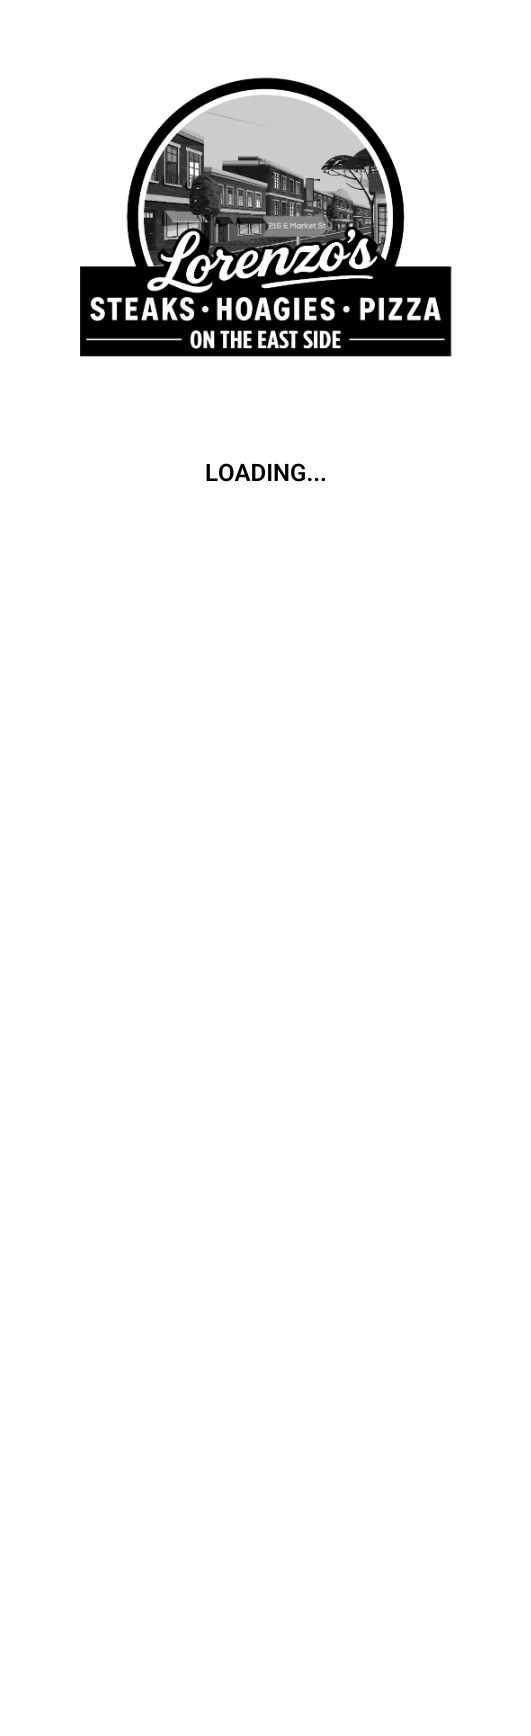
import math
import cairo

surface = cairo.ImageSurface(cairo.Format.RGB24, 531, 1736)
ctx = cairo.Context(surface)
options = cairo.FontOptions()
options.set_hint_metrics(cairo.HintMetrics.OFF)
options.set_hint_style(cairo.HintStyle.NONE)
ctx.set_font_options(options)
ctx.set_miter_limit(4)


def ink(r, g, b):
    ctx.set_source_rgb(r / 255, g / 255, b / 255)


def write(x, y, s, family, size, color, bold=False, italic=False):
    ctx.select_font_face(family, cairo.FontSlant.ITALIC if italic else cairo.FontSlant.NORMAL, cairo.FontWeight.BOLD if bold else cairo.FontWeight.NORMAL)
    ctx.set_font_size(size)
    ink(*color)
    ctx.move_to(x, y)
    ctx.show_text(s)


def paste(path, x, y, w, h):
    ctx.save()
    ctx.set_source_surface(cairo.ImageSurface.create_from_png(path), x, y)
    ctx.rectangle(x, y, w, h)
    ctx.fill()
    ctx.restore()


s1 = dict(family="Roboto SemiBold", size=24, color=(0, 0, 0))

ink(255, 255, 255)
ctx.paint()
paste("pic1.png", 80, 77, 372, 280)
write(205, 481, "LOADING...", **s1)
surface.write_to_png("screenshot.png")
